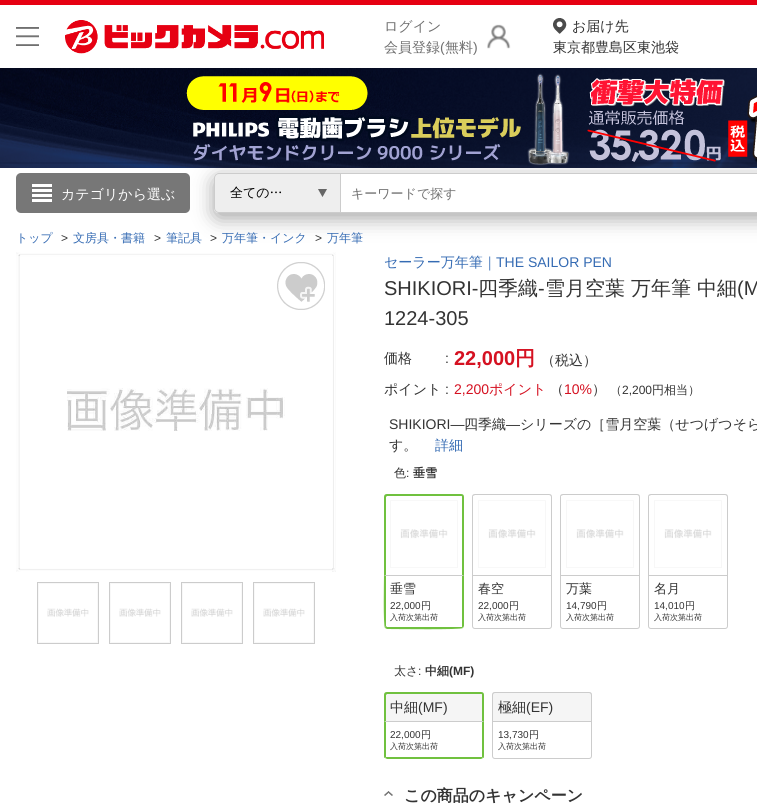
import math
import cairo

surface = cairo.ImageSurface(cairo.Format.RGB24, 757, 808)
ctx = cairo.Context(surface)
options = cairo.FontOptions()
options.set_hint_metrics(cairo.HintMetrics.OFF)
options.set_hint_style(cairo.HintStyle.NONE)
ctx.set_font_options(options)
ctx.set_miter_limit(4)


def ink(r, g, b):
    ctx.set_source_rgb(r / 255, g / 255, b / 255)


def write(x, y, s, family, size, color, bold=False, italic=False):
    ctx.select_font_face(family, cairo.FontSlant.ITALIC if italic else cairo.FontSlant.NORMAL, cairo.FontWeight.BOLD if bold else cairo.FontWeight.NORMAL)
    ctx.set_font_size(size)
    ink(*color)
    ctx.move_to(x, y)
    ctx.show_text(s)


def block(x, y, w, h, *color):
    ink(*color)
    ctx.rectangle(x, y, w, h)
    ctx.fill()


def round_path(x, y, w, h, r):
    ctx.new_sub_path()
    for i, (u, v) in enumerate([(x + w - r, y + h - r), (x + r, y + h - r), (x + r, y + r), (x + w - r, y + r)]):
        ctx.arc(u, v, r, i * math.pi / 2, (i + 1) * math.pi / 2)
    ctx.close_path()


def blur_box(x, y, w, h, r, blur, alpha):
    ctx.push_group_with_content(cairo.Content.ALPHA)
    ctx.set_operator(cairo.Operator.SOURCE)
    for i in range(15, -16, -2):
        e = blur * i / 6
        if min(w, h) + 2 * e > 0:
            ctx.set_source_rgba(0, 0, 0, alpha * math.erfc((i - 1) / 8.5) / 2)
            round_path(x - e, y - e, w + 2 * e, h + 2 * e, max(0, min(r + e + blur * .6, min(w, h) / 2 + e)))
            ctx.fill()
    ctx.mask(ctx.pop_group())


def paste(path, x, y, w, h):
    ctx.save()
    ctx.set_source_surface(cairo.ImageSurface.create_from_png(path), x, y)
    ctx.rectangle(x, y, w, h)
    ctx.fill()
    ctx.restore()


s1 = dict(family="WenQuanYi Zen Hei Medium", size=14, color=(112, 112, 112))
s2 = dict(family="Liberation Sans", size=14, color=(112, 112, 112))
s3 = dict(family="WenQuanYi Zen Hei Medium", size=14, color=(51, 51, 51))
s4 = dict(family="WenQuanYi Zen Hei Medium", size=14, color=(255, 255, 255))
s5 = dict(family="WenQuanYi Zen Hei Medium", size=13, color=(0, 0, 0))
s6 = dict(family="WenQuanYi Zen Hei Medium", size=13, color=(112, 112, 112))
s7 = dict(family="WenQuanYi Zen Hei Medium", size=12, color=(53, 107, 179))
s8 = dict(family="Liberation Sans", size=12, color=(51, 51, 51))
s9 = dict(family="WenQuanYi Zen Hei Medium", size=14, color=(53, 107, 179))
s10 = dict(family="Liberation Sans", size=14, color=(53, 107, 179))
s11 = dict(family="Liberation Sans", size=20, color=(51, 51, 51))
s12 = dict(family="WenQuanYi Zen Hei Medium", size=20, color=(51, 51, 51))
s13 = dict(family="Liberation Sans", size=14, color=(51, 51, 51))
s14 = dict(family="Liberation Sans", size=20, color=(213, 17, 33), bold=True)
s15 = dict(family="WenQuanYi Zen Hei", size=20, color=(213, 17, 33), bold=True)
s16 = dict(family="Liberation Sans", size=14, color=(213, 17, 33))
s17 = dict(family="WenQuanYi Zen Hei Medium", size=14, color=(213, 17, 33))
s18 = dict(family="WenQuanYi Zen Hei Medium", size=12, color=(51, 51, 51))
s19 = dict(family="WenQuanYi Zen Hei", size=12, color=(51, 51, 51), bold=True)
s20 = dict(family="WenQuanYi Zen Hei Medium", size=13, color=(51, 51, 51))
s21 = dict(family="Liberation Sans", size=10, color=(51, 51, 51))
s22 = dict(family="WenQuanYi Zen Hei Medium", size=10, color=(51, 51, 51))
s23 = dict(family="WenQuanYi Zen Hei Medium", size=8, color=(51, 51, 51))
s24 = dict(family="Liberation Sans", size=12, color=(51, 51, 51), bold=True)
s25 = dict(family="WenQuanYi Zen Hei", size=16, color=(51, 51, 51), bold=True)

ink(255, 255, 255)
ctx.paint()
block(0, 0, 757, 5, 230, 0, 18)
paste("pic1.png", 16, 27, 23, 19)
paste("pic2.png", 65, 20, 259, 34)
paste("pic3.png", 487, 24, 24, 25)
write(384, 31, "ログイン", **s1)
write(384, 52, "会員登録", **s1)
write(440, 52, "(", **s2)
write(445, 52, "無料", **s1)
write(473, 52, ")", **s2)
paste("pic4.png", 553, 18, 14, 16)
write(572, 31, "お届け先", **s3)
write(553, 52, "東京都豊島区東池袋", **s3)
paste("pic5.png", 0, 68, 757, 100)
ctx.save()
ctx.set_fill_rule(cairo.FillRule.EVEN_ODD)
ctx.new_path()
ctx.move_to(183, 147)
ctx.line_to(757, 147)
ctx.line_to(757, 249)
ctx.line_to(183, 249)
ctx.close_path()
ctx.move_to(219, 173)
ctx.line_to(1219, 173)
ctx.curve_to(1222, 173, 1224, 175, 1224, 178)
ctx.line_to(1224, 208)
ctx.curve_to(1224, 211, 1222, 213, 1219, 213)
ctx.line_to(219, 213)
ctx.curve_to(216, 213, 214, 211, 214, 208)
ctx.line_to(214, 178)
ctx.curve_to(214, 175, 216, 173, 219, 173)
ctx.close_path()
ctx.clip()
ink(25, 25, 25)
blur_box(214, 178, 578, 40, 5, 10, 0.4)
ctx.restore()
ink(119, 119, 119)
round_path(16, 173, 174, 40, 5)
ctx.fill()
paste("pic6.png", 32, 184, 20, 18)
write(61, 199, "カテゴリから選ぶ", **s4)
ink(238, 238, 238)
ctx.new_path()
ctx.move_to(219, 173)
ctx.line_to(341, 173)
ctx.line_to(341, 213)
ctx.line_to(219, 213)
ctx.curve_to(216, 213, 214, 211, 214, 208)
ctx.line_to(214, 178)
ctx.curve_to(214, 175, 216, 173, 219, 173)
ctx.close_path()
ctx.fill()
paste("pic7.png", 318, 189, 9, 8)
ctx.new_path()
ctx.move_to(219, 173.5)
ctx.line_to(340.5, 173.5)
ctx.line_to(340.5, 212.5)
ctx.line_to(219, 212.5)
ctx.curve_to(216.5, 212.5, 214.5, 210.5, 214.5, 208)
ctx.line_to(214.5, 178)
ctx.curve_to(214.5, 175.5, 216.5, 173.5, 219, 173.5)
ctx.close_path()
ink(204, 204, 204)
ctx.set_line_width(1)
ctx.stroke()
write(230, 197, "全ての…", **s5)
block(341, 173, 416, 1, 204, 204, 204)
block(341, 212, 416, 1, 204, 204, 204)
write(351, 198, "キーワードで探す", **s6)
write(16, 242, "トップ", **s7)
write(61, 242, ">", **s8)
write(73, 242, "文房具・書籍", **s7)
write(154, 242, ">", **s8)
write(166, 242, "筆記具", **s7)
write(210, 242, ">", **s8)
write(222, 242, "万年筆・インク", **s7)
write(315, 242, ">", **s8)
write(327, 242, "万年筆", **s7)
paste("pic8.png", 16, 252, 320, 320)
paste("pic9.png", 277, 262, 48, 48)
ctx.rectangle(37.5, 582.5, 61, 61)
ink(204, 204, 204)
ctx.stroke()
paste("pic10.png", 38, 583, 60, 60)
ctx.rectangle(109.5, 582.5, 61, 61)
ctx.stroke()
paste("pic10.png", 110, 583, 60, 60)
ctx.rectangle(181.5, 582.5, 61, 61)
ctx.stroke()
paste("pic10.png", 182, 583, 60, 60)
ctx.rectangle(253.5, 582.5, 61, 61)
ctx.stroke()
paste("pic10.png", 254, 583, 60, 60)
write(384, 267, "セーラー万年筆｜", **s9)
write(496, 267, "THE SAILOR PEN", **s10)
write(384, 295, "SHIKIORI-", **s11)
write(478, 295, "四季織", **s12)
write(538, 295, "-", **s11)
write(545, 295, "雪月空葉 万年筆 中細", **s12)
write(737, 295, "(M", **s11)
write(384, 325, "1224-305", **s11)
write(384, 363, "価格", **s3)
write(445, 363, ":", **s13)
write(454, 365, "22,000", **s14)
write(515, 365, "円", **s15)
write(541, 365, "（税込）", **s3)
write(384, 394, "ポイント", **s3)
write(445, 394, ":", **s13)
write(454, 394, "2,200", **s16)
write(489, 394, "ポイント", **s17)
write(550, 394, "（", **s3)
write(564, 394, "10%", **s16)
write(592, 394, "）", **s3)
write(610, 394, "（", **s18)
write(622, 394, "2,200", **s8)
write(652, 394, "円相当）", **s18)
write(389, 429, "SHIKIORI―", **s13)
write(464, 429, "四季織", **s3)
write(506, 429, "―", **s13)
write(520, 429, "シリーズの［雪月空葉（せつげつそら", **s3)
write(389, 450, "す。", **s3)
write(435, 450, "詳細", **s9)
write(394, 477, "色", **s18)
write(406, 477, ":", **s8)
write(413, 477, "垂雪", **s19)
ink(112, 193, 63)
ctx.set_fill_rule(cairo.FillRule.EVEN_ODD)
ctx.new_path()
ctx.move_to(387, 494)
ctx.line_to(461, 494)
ctx.curve_to(463, 494, 464, 495, 464, 497)
ctx.line_to(464, 575)
ctx.line_to(384, 575)
ctx.line_to(384, 497)
ctx.curve_to(384, 495, 385, 494, 387, 494)
ctx.close_path()
ctx.move_to(387, 496)
ctx.line_to(461, 496)
ctx.curve_to(462, 496, 462, 496, 462, 497)
ctx.line_to(462, 575)
ctx.line_to(386, 575)
ctx.line_to(386, 497)
ctx.close_path()
ctx.fill()
paste("pic11.png", 390, 500, 68, 68)
ink(204, 204, 204)
ctx.set_fill_rule(cairo.FillRule.WINDING)
ctx.new_path()
ctx.move_to(384, 575)
ctx.line_to(386, 576)
ctx.line_to(462, 576)
ctx.line_to(464, 575)
ctx.close_path()
ctx.fill()
ink(112, 193, 63)
ctx.new_path()
ctx.move_to(464, 575)
ctx.line_to(462, 576)
ctx.line_to(462, 627)
ctx.line_to(463, 628)
ctx.line_to(464, 626)
ctx.close_path()
ctx.fill()
ctx.new_path()
ctx.move_to(387, 629)
ctx.curve_to(395, 629, 462, 630, 463, 628)
ctx.line_to(462, 627)
ctx.line_to(387, 627)
ctx.line_to(386, 626)
ctx.line_to(385, 628)
ctx.close_path()
ctx.fill()
ctx.new_path()
ctx.move_to(386, 576)
ctx.line_to(384, 575)
ctx.curve_to(384, 581, 383, 626, 385, 628)
ctx.line_to(386, 626)
ctx.close_path()
ctx.fill()
write(390, 593, "垂雪", **s20)
write(390, 609, "22,000", **s21)
write(421, 609, "円", **s22)
write(390, 620, "入荷次第出荷", **s23)
ink(204, 204, 204)
ctx.set_fill_rule(cairo.FillRule.EVEN_ODD)
ctx.new_path()
ctx.move_to(475, 494)
ctx.line_to(549, 494)
ctx.curve_to(551, 494, 552, 495, 552, 497)
ctx.line_to(552, 575)
ctx.line_to(472, 575)
ctx.line_to(472, 497)
ctx.curve_to(472, 495, 473, 494, 475, 494)
ctx.close_path()
ctx.move_to(475, 495)
ctx.line_to(549, 495)
ctx.curve_to(550, 495, 551, 496, 551, 497)
ctx.line_to(551, 575)
ctx.line_to(473, 575)
ctx.line_to(473, 496)
ctx.close_path()
ctx.fill()
paste("pic11.png", 478, 500, 68, 68)
ctx.new_path()
ctx.move_to(472.5, 575.5)
ctx.line_to(551.5, 575.5)
ctx.line_to(551.5, 626)
ctx.curve_to(551.5, 627.5, 550.5, 628.5, 549, 628.5)
ctx.line_to(475, 628.5)
ctx.curve_to(473.5, 628.5, 472.5, 627.5, 472.5, 626)
ctx.close_path()
ctx.stroke()
write(478, 593, "春空", **s20)
write(478, 609, "22,000", **s21)
write(509, 609, "円", **s22)
write(478, 620, "入荷次第出荷", **s23)
ink(204, 204, 204)
ctx.new_path()
ctx.move_to(563, 494)
ctx.line_to(637, 494)
ctx.curve_to(639, 494, 640, 495, 640, 497)
ctx.line_to(640, 575)
ctx.line_to(560, 575)
ctx.line_to(560, 497)
ctx.curve_to(560, 495, 561, 494, 563, 494)
ctx.close_path()
ctx.move_to(563, 495)
ctx.line_to(637, 495)
ctx.curve_to(638, 495, 639, 496, 639, 497)
ctx.line_to(639, 575)
ctx.line_to(561, 575)
ctx.line_to(561, 496)
ctx.close_path()
ctx.fill()
paste("pic11.png", 566, 500, 68, 68)
ctx.new_path()
ctx.move_to(560.5, 575.5)
ctx.line_to(639.5, 575.5)
ctx.line_to(639.5, 626)
ctx.curve_to(639.5, 627.5, 638.5, 628.5, 637, 628.5)
ctx.line_to(563, 628.5)
ctx.curve_to(561.5, 628.5, 560.5, 627.5, 560.5, 626)
ctx.close_path()
ctx.stroke()
write(566, 593, "万葉", **s20)
write(566, 609, "14,790", **s21)
write(597, 609, "円", **s22)
write(566, 620, "入荷次第出荷", **s23)
ink(204, 204, 204)
ctx.new_path()
ctx.move_to(651, 494)
ctx.line_to(725, 494)
ctx.curve_to(727, 494, 728, 495, 728, 497)
ctx.line_to(728, 575)
ctx.line_to(648, 575)
ctx.line_to(648, 497)
ctx.curve_to(648, 495, 649, 494, 651, 494)
ctx.close_path()
ctx.move_to(651, 495)
ctx.line_to(725, 495)
ctx.curve_to(726, 495, 727, 496, 727, 497)
ctx.line_to(727, 575)
ctx.line_to(649, 575)
ctx.line_to(649, 496)
ctx.close_path()
ctx.fill()
paste("pic12.png", 654, 500, 68, 68)
ctx.new_path()
ctx.move_to(648.5, 575.5)
ctx.line_to(727.5, 575.5)
ctx.line_to(727.5, 626)
ctx.curve_to(727.5, 627.5, 726.5, 628.5, 725, 628.5)
ctx.line_to(651, 628.5)
ctx.curve_to(649.5, 628.5, 648.5, 627.5, 648.5, 626)
ctx.close_path()
ctx.stroke()
write(654, 593, "名月", **s20)
write(654, 609, "14,010", **s21)
write(685, 609, "円", **s22)
write(654, 620, "入荷次第出荷", **s23)
write(394, 675, "太さ", **s18)
write(418, 675, ":", **s8)
write(425, 675, "中細", **s19)
write(449, 675, "(MF)", **s24)
ink(245, 245, 245)
ctx.new_path()
ctx.move_to(387, 692)
ctx.line_to(481, 692)
ctx.curve_to(482.5, 692, 484, 693.5, 484, 695)
ctx.line_to(484, 721)
ctx.line_to(384, 721)
ctx.line_to(384, 695)
ctx.curve_to(384, 693.5, 385.5, 692, 387, 692)
ctx.close_path()
ctx.fill()
ink(112, 193, 63)
ctx.new_path()
ctx.move_to(387, 692)
ctx.line_to(481, 692)
ctx.curve_to(483, 692, 484, 693, 484, 695)
ctx.line_to(484, 721)
ctx.line_to(384, 721)
ctx.line_to(384, 695)
ctx.curve_to(384, 693, 385, 692, 387, 692)
ctx.close_path()
ctx.move_to(387, 694)
ctx.line_to(481, 694)
ctx.curve_to(482, 694, 482, 694, 482, 695)
ctx.line_to(482, 721)
ctx.line_to(386, 721)
ctx.line_to(386, 695)
ctx.close_path()
ctx.fill()
write(390, 712, "中細", **s3)
write(418, 712, "(MF)", **s13)
ink(204, 204, 204)
ctx.set_fill_rule(cairo.FillRule.WINDING)
ctx.new_path()
ctx.move_to(384, 721)
ctx.line_to(386, 722)
ctx.line_to(482, 722)
ctx.line_to(484, 721)
ctx.close_path()
ctx.fill()
ink(112, 193, 63)
ctx.new_path()
ctx.move_to(484, 721)
ctx.line_to(482, 722)
ctx.line_to(482, 757)
ctx.line_to(483, 758)
ctx.curve_to(484, 758, 484, 757, 484, 756)
ctx.close_path()
ctx.fill()
ctx.new_path()
ctx.move_to(387, 759)
ctx.line_to(481, 759)
ctx.line_to(483, 758)
ctx.line_to(482, 757)
ctx.line_to(386, 757)
ctx.line_to(385, 758)
ctx.close_path()
ctx.fill()
ctx.new_path()
ctx.move_to(386, 722)
ctx.line_to(384, 721)
ctx.line_to(384, 756)
ctx.curve_to(384, 757, 384, 758, 385, 758)
ctx.line_to(386, 757)
ctx.line_to(386, 756)
ctx.close_path()
ctx.fill()
write(390, 738, "22,000", **s21)
write(421, 738, "円", **s22)
write(390, 749, "入荷次第出荷", **s23)
ink(245, 245, 245)
ctx.new_path()
ctx.move_to(495, 692)
ctx.line_to(589, 692)
ctx.curve_to(590.5, 692, 592, 693.5, 592, 695)
ctx.line_to(592, 721)
ctx.line_to(492, 721)
ctx.line_to(492, 695)
ctx.curve_to(492, 693.5, 493.5, 692, 495, 692)
ctx.close_path()
ctx.fill()
ink(204, 204, 204)
ctx.set_fill_rule(cairo.FillRule.EVEN_ODD)
ctx.new_path()
ctx.move_to(495, 692)
ctx.line_to(589, 692)
ctx.curve_to(591, 692, 592, 693, 592, 695)
ctx.line_to(592, 721)
ctx.line_to(492, 721)
ctx.line_to(492, 695)
ctx.curve_to(492, 693, 493, 692, 495, 692)
ctx.close_path()
ctx.move_to(495, 693)
ctx.line_to(589, 693)
ctx.curve_to(590, 693, 591, 694, 591, 695)
ctx.line_to(591, 721)
ctx.line_to(493, 721)
ctx.line_to(493, 695)
ctx.curve_to(493, 694, 494, 693, 495, 693)
ctx.close_path()
ctx.fill()
write(498, 712, "極細", **s3)
write(526, 712, "(EF)", **s13)
ctx.new_path()
ctx.move_to(492.5, 721.5)
ctx.line_to(591.5, 721.5)
ctx.line_to(591.5, 756)
ctx.curve_to(591.5, 757.5, 590.5, 758.5, 589, 758.5)
ctx.line_to(495, 758.5)
ctx.curve_to(493.5, 758.5, 492.5, 757.5, 492.5, 756)
ctx.close_path()
ink(204, 204, 204)
ctx.stroke()
write(498, 738, "13,730", **s21)
write(529, 738, "円", **s22)
write(498, 749, "入荷次第出荷", **s23)
paste("pic13.png", 384, 791, 9, 5)
write(404, 801, "この商品のキャンペーン", **s25)
surface.write_to_png("screenshot.png")
